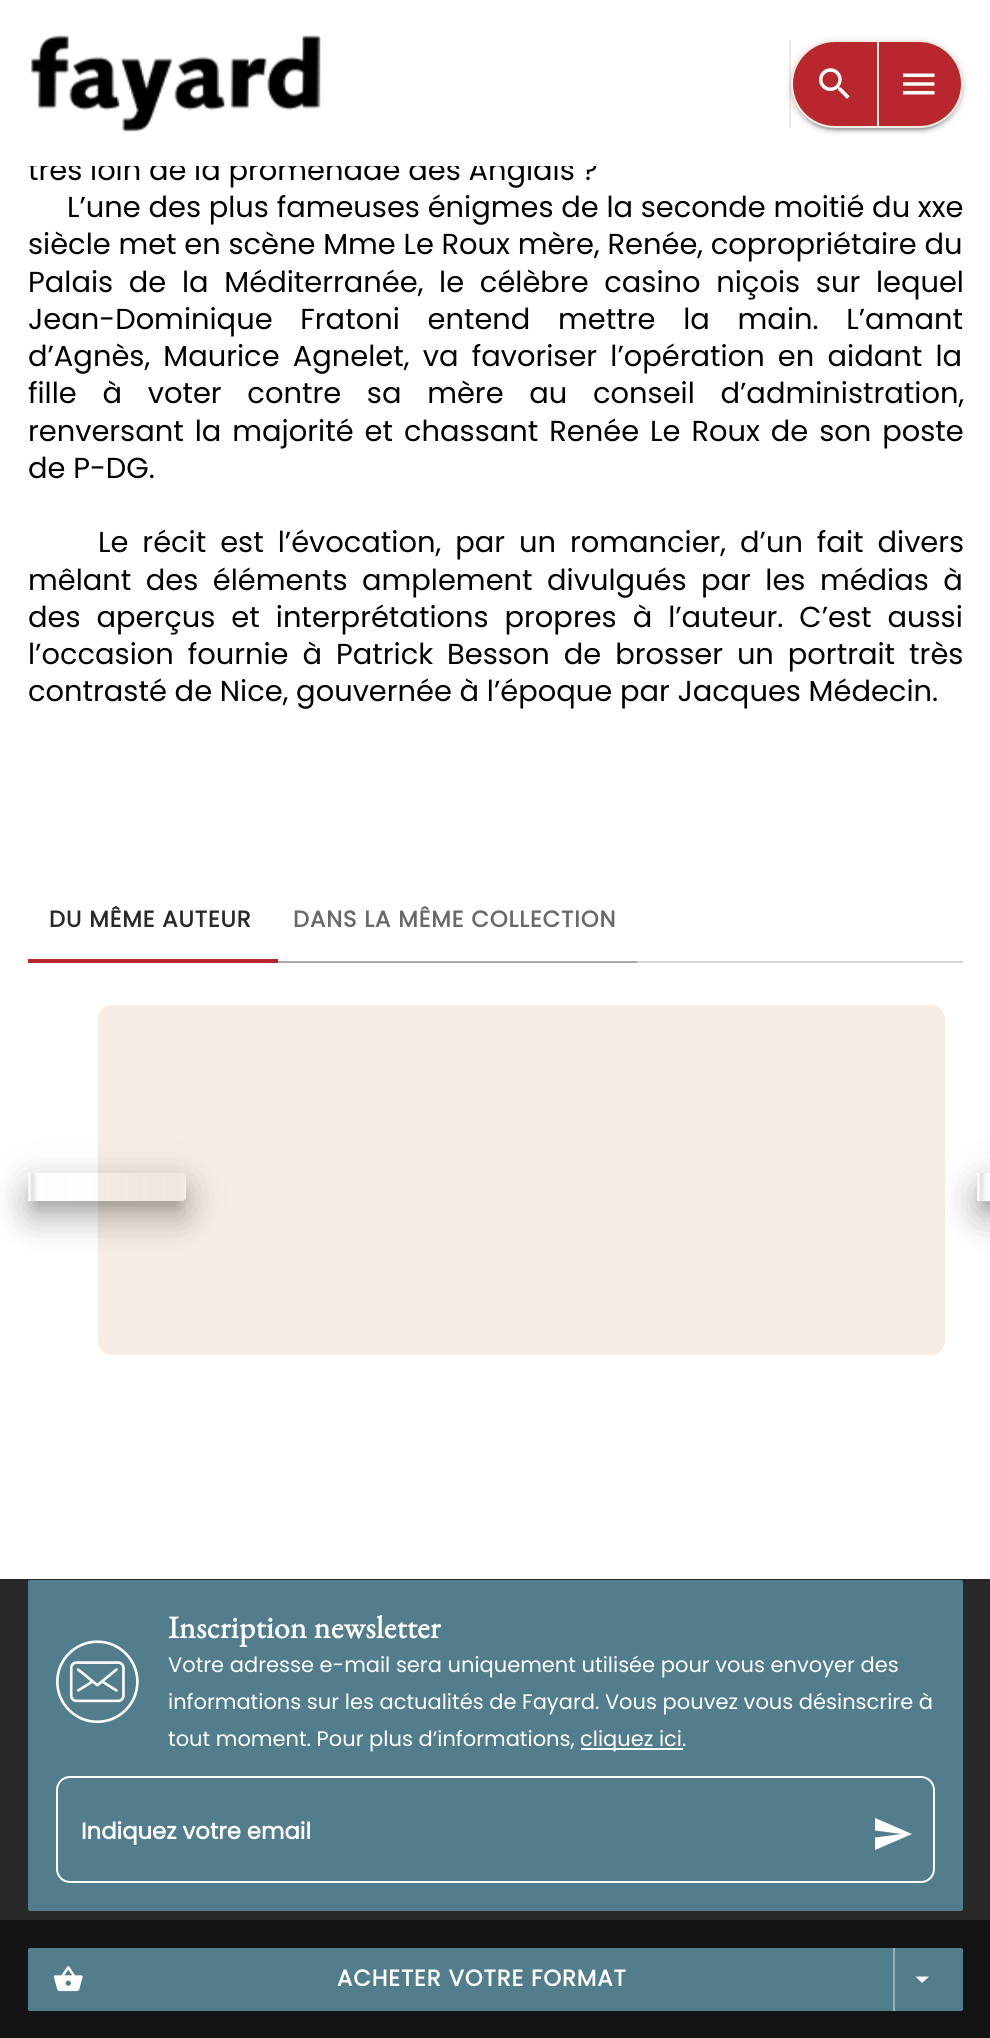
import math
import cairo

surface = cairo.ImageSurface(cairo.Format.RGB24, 990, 2038)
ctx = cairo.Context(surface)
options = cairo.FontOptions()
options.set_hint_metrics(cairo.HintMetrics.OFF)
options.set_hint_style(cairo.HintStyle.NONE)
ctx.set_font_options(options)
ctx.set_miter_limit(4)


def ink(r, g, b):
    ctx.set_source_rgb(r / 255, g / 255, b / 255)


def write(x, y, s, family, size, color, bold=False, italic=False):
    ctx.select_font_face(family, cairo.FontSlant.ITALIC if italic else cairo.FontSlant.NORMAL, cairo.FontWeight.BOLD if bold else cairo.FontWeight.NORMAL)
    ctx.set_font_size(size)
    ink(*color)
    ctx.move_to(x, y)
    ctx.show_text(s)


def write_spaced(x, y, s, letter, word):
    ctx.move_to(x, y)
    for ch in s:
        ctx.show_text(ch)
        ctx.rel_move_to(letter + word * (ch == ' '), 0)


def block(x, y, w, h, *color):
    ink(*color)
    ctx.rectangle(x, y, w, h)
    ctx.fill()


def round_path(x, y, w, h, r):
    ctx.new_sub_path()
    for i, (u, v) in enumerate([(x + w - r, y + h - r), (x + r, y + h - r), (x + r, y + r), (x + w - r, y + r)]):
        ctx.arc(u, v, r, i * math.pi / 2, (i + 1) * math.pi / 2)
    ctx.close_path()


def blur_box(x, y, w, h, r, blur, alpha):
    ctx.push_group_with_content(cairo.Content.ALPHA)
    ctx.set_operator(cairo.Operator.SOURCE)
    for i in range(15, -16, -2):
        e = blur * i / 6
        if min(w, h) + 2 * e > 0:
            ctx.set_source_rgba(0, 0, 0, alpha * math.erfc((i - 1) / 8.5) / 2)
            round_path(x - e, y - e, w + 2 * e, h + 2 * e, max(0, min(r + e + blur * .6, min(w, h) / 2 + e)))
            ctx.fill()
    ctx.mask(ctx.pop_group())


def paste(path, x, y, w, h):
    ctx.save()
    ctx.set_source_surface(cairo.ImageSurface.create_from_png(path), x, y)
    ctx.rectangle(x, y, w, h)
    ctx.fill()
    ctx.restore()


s1 = dict(family="Poppins", size=28.9, color=(0, 0, 0))
s2 = dict(family="Poppins", size=21, color=(255, 255, 255))
s3 = dict(family="Poppins", size=22.75, color=(255, 255, 255), bold=True)

ink(255, 255, 255)
ctx.paint()
write(28, 180, "très loin de la promenade des Anglais ?", **s1)
block(28, 157, 568, 9, 255, 255, 255)
paste("pic1.png", 31, 35, 290, 97)
block(789, 40, 2, 88, 235, 235, 235)
ink(0, 0, 0)
blur_box(791, 42, 172, 88, 44, 4.5, 0.12)
blur_box(791, 44, 172, 87, 43.5, 2, 0.14)
blur_box(795, 49, 164, 81, 40.5, 1, 0.2)
ink(183, 39, 45)
round_path(792, 41, 170, 86, 43)
ctx.fill_preserve()
ink(245, 237, 230)
ctx.stroke()
paste("pic2.png", 819, 68, 31, 31)
block(877, 42, 2, 84, 245, 237, 230)
paste("pic3.png", 903, 73, 32, 22)
write(67, 217, "L’une des plus fameuses énigmes de la seconde moitié du xxe", **s1)
write(28, 254, "siècle met en scène Mme Le Roux mère, Renée, copropriétaire du", **s1)
write_spaced(28, 292, "Palais de la Méditerranée, le célèbre casino niçois sur lequel", 0, 8)
write_spaced(28, 329, "Jean-Dominique Fratoni entend mettre la main. L’amant", 0, 20)
write_spaced(28, 366, "d’Agnès, Maurice Agnelet, va favoriser l’opération en aidant la", 0, 5.5)
write_spaced(28, 403, "fille à voter contre sa mère au conseil d’administration,", 0, 18)
write_spaced(28, 441, "renversant la majorité et chassant Renée Le Roux de son poste", 0, 3.25)
write(28, 478, "de P-DG.", **s1)
write_spaced(98, 552, "Le récit est l’évocation, par un romancier, d’un fait divers", 0, 6.25)
write_spaced(28, 590, "mêlant des éléments amplement divulgués par les médias à", 0, 6.75)
write_spaced(28, 627, "des aperçus et interprétations propres à l’auteur. C’est aussi", 0, 8.25)
write_spaced(28, 664, "l’occasion fournie à Patrick Besson de brosser un portrait très", 0, 6.25)
write(28, 701, "contrasté de Nice, gouvernée à l’époque par Jacques Médecin.", **s1)
block(0, 1920, 990, 118, 20, 20, 20)
ink(82, 125, 141)
round_path(28, 1948, 935, 63, 2)
ctx.fill()
paste("pic4.png", 53, 1966, 30, 26)
ctx.select_font_face("Poppins", cairo.FontSlant.NORMAL, cairo.FontWeight.BOLD)
ctx.set_font_size(22.75)
ink(255, 255, 255)
write_spaced(337, 1986, "ACHETER VOTRE FORMAT", 0.9, 0)
block(893, 1948, 2, 63, 151, 177, 187)
ink(255, 255, 255)
ctx.new_path()
ctx.move_to(915.5, 1976.5)
ctx.line_to(929, 1976.5)
ctx.line_to(922, 1983)
ctx.close_path()
ctx.fill()
ink(41, 41, 41)
write_spaced(49, 927, "DU MÊME AUTEUR", 0.9, 0)
ink(105, 105, 105)
write_spaced(293, 927, "DANS LA MÊME COLLECTION", 0.9, 0)
block(273, 961, 364, 2, 169, 169, 169)
block(28, 959, 250, 4, 183, 39, 45)
block(637, 961, 326, 2, 214, 214, 214)
ctx.save()
ctx.set_fill_rule(cairo.FillRule.EVEN_ODD)
ctx.new_path()
ctx.move_to(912, 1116)
ctx.line_to(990, 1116)
ctx.line_to(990, 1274)
ctx.line_to(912, 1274)
ctx.close_path()
ctx.move_to(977, 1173)
ctx.line_to(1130, 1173)
ctx.curve_to(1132, 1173, 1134, 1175, 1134, 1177)
ctx.line_to(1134, 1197)
ctx.curve_to(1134, 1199, 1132, 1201, 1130, 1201)
ctx.line_to(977, 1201)
ctx.close_path()
ctx.clip()
ink(0, 0, 0)
blur_box(970, 1174, 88, 42, 11, 19, 0.12)
ctx.restore()
ctx.save()
ctx.set_fill_rule(cairo.FillRule.EVEN_ODD)
ctx.new_path()
ctx.move_to(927, 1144)
ctx.line_to(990, 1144)
ctx.line_to(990, 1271)
ctx.line_to(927, 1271)
ctx.close_path()
ctx.move_to(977, 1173)
ctx.line_to(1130, 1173)
ctx.curve_to(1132, 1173, 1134, 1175, 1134, 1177)
ctx.line_to(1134, 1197)
ctx.curve_to(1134, 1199, 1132, 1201, 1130, 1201)
ctx.line_to(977, 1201)
ctx.close_path()
ctx.clip()
ink(0, 0, 0)
blur_box(973, 1190, 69, 35, 7, 15, 0.14)
ctx.restore()
ink(245, 237, 230)
round_path(98, 1005, 847, 350, 14)
ctx.fill()
ctx.save()
ctx.set_fill_rule(cairo.FillRule.EVEN_ODD)
ctx.new_path()
ctx.move_to(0, 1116)
ctx.line_to(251, 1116)
ctx.line_to(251, 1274)
ctx.line_to(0, 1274)
ctx.close_path()
ctx.move_to(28, 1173)
ctx.line_to(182, 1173)
ctx.curve_to(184, 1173, 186, 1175, 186, 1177)
ctx.line_to(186, 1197)
ctx.curve_to(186, 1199, 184, 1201, 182, 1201)
ctx.line_to(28, 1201)
ctx.close_path()
ctx.clip()
ink(0, 0, 0)
blur_box(21, 1174, 172, 42, 11, 19, 0.12)
ctx.restore()
ctx.save()
ctx.set_fill_rule(cairo.FillRule.EVEN_ODD)
ctx.new_path()
ctx.move_to(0, 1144)
ctx.line_to(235, 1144)
ctx.line_to(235, 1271)
ctx.line_to(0, 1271)
ctx.close_path()
ctx.move_to(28, 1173)
ctx.line_to(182, 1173)
ctx.curve_to(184, 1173, 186, 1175, 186, 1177)
ctx.line_to(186, 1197)
ctx.curve_to(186, 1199, 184, 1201, 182, 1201)
ctx.line_to(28, 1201)
ctx.close_path()
ctx.clip()
ink(0, 0, 0)
blur_box(25, 1190, 164, 35, 7, 15, 0.14)
ctx.restore()
ctx.save()
ctx.set_fill_rule(cairo.FillRule.EVEN_ODD)
ctx.new_path()
ctx.move_to(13, 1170)
ctx.line_to(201, 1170)
ctx.line_to(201, 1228)
ctx.line_to(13, 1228)
ctx.close_path()
ctx.move_to(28, 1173)
ctx.line_to(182, 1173)
ctx.curve_to(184, 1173, 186, 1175, 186, 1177)
ctx.line_to(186, 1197)
ctx.curve_to(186, 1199, 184, 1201, 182, 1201)
ctx.line_to(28, 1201)
ctx.close_path()
ctx.clip()
ink(0, 0, 0)
blur_box(35, 1192, 144, 14, 0, 7, 0.2)
ctx.restore()
gradient = cairo.LinearGradient(28, 1187, 186, 1187)
gradient.add_color_stop_rgba(0, 1, 1, 1, 0.3)
gradient.add_color_stop_rgba(0, 0.663, 0.663, 0.663, 0.18)
gradient.add_color_stop_rgba(0.01, 1, 1, 1, 0.36)
gradient.add_color_stop_rgba(0.04, 0.02, 0.02, 0.02, 0.06)
gradient.add_color_stop_rgba(0.07, 0.02, 0.02, 0.02, 0)
gradient.add_color_stop_rgba(0.07, 0.498, 0.498, 0.498, 0)
gradient.add_color_stop_rgba(0.98, 0.498, 0.498, 0.498, 0.06)
gradient.add_color_stop_rgba(1, 1, 1, 1, 0.06)
ctx.set_source(gradient)
round_path(28, 1173, 158, 28, 4)
ctx.fill()
ctx.save()
ctx.set_fill_rule(cairo.FillRule.EVEN_ODD)
ctx.new_path()
ctx.move_to(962, 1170)
ctx.line_to(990, 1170)
ctx.line_to(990, 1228)
ctx.line_to(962, 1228)
ctx.close_path()
ctx.move_to(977, 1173)
ctx.line_to(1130, 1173)
ctx.curve_to(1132, 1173, 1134, 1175, 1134, 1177)
ctx.line_to(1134, 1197)
ctx.curve_to(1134, 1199, 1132, 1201, 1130, 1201)
ctx.line_to(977, 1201)
ctx.close_path()
ctx.clip()
ink(0, 0, 0)
blur_box(984, 1192, 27, 14, 0, 7, 0.2)
ctx.restore()
gradient = cairo.LinearGradient(977, 1187, 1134, 1187)
gradient.add_color_stop_rgba(0, 1, 1, 1, 0.3)
gradient.add_color_stop_rgba(0, 0.663, 0.663, 0.663, 0.18)
gradient.add_color_stop_rgba(0.01, 1, 1, 1, 0.36)
gradient.add_color_stop_rgba(0.04, 0.02, 0.02, 0.02, 0.06)
gradient.add_color_stop_rgba(0.07, 0.02, 0.02, 0.02, 0)
gradient.add_color_stop_rgba(0.07, 0.498, 0.498, 0.498, 0)
gradient.add_color_stop_rgba(0.98, 0.498, 0.498, 0.498, 0.06)
gradient.add_color_stop_rgba(1, 1, 1, 1, 0.06)
ctx.set_source(gradient)
ctx.new_path()
ctx.move_to(981, 1173)
ctx.line_to(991, 1173)
ctx.line_to(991, 1201)
ctx.line_to(981, 1201)
ctx.curve_to(979, 1201, 977, 1199, 977, 1197)
ctx.line_to(977, 1177)
ctx.curve_to(977, 1175, 979, 1173, 981, 1173)
ctx.close_path()
ctx.fill()
block(0, 1581, 990, 339, 41, 41, 41)
block(0, 1579, 990, 2, 38, 38, 38)
ink(82, 125, 141)
round_path(28, 1580, 935, 331, 2)
ctx.fill()
paste("pic5.png", 56, 1640, 83, 84)
ctx.select_font_face("EB Garamond", cairo.FontSlant.NORMAL, cairo.FontWeight.BOLD)
ctx.set_font_size(31.5)
ink(255, 255, 255)
write_spaced(168, 1638, "Inscription newsletter", 0.4, 0)
write(168, 1672, "Votre adresse e-mail sera uniquement utilisée pour vous envoyer des", **s2)
write(168, 1709, "informations sur les actualités de Fayard. Vous pouvez vous désinscrire à", **s2)
write(168, 1746, "tout moment. Pour plus d’informations,", **s2)
block(581, 1748, 102, 2, 255, 255, 255)
write(580, 1746, "cliquez ici.", **s2)
round_path(57, 1777, 877, 105, 13)
ctx.stroke()
write(81, 1839, "Indiquez votre email", **s3)
ctx.new_path()
ctx.move_to(875, 1850)
ctx.line_to(875, 1837.5)
ctx.line_to(901.5, 1834)
ctx.line_to(875, 1830.5)
ctx.line_to(875, 1818)
ctx.line_to(912, 1834)
ctx.close_path()
ctx.fill()
surface.write_to_png("screenshot.png")
